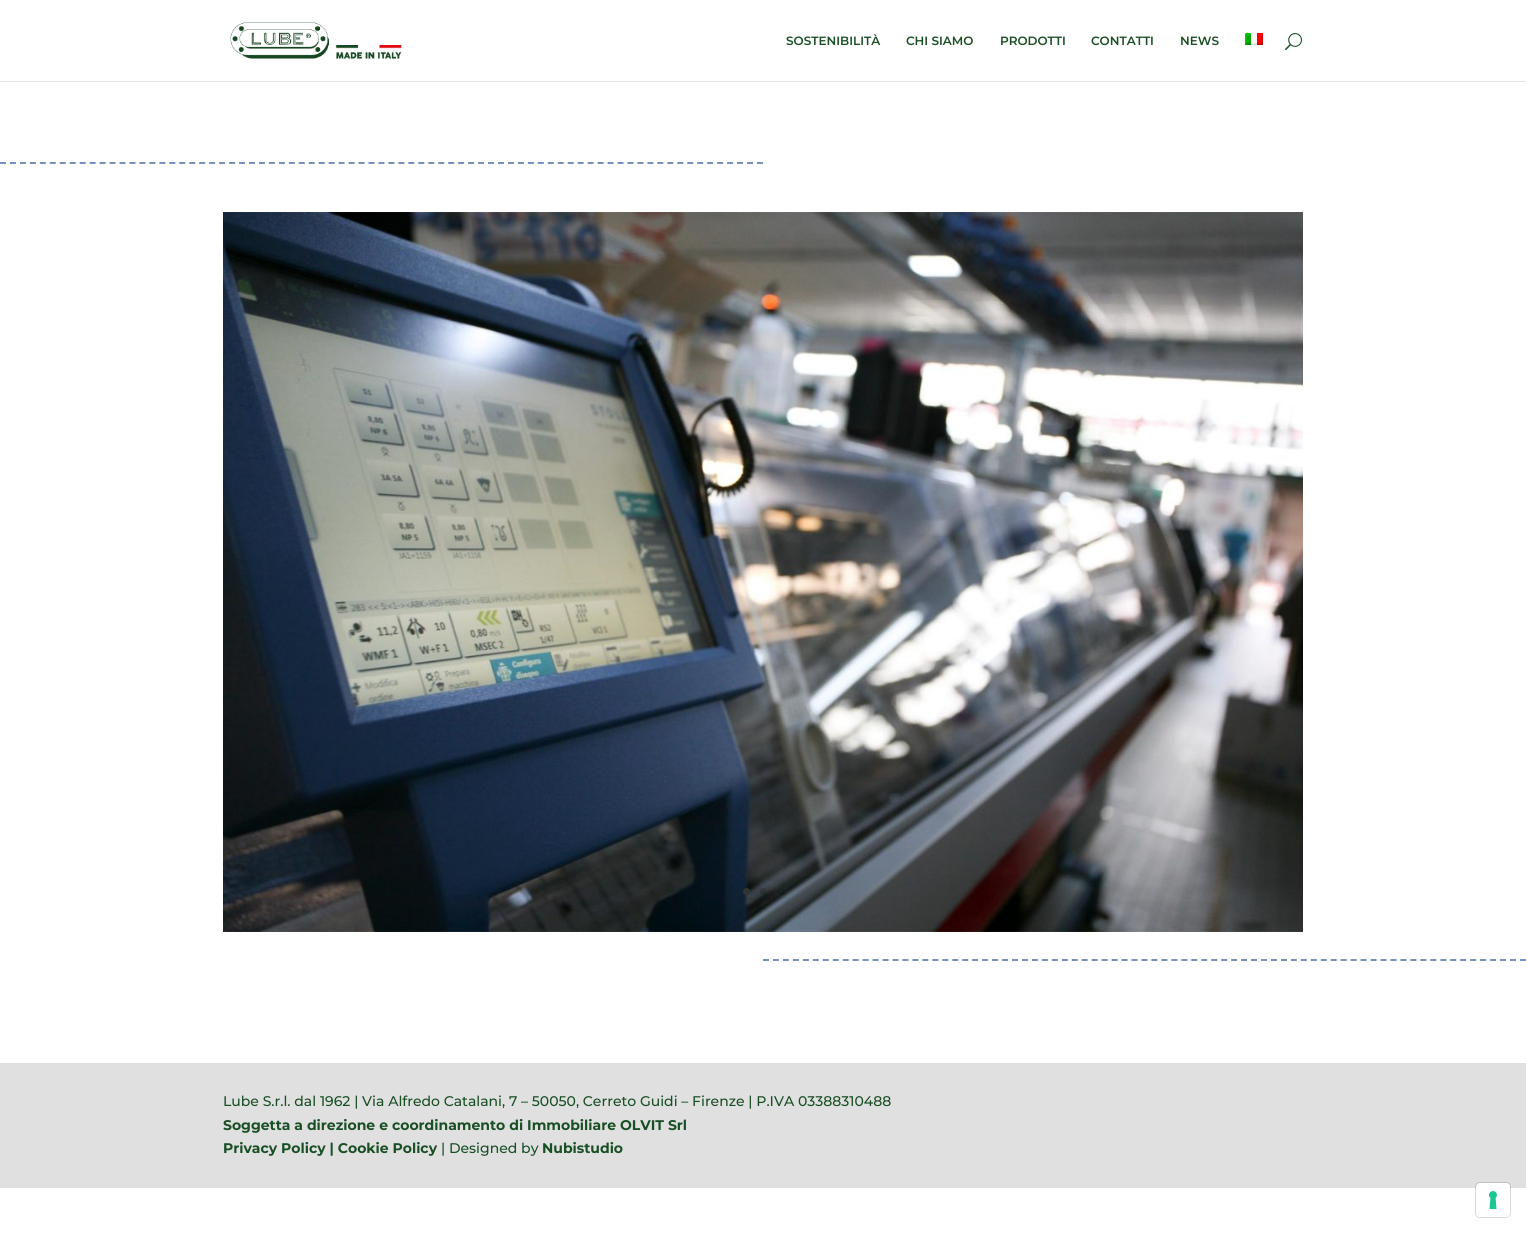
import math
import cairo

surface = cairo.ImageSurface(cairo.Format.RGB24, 1526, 1233)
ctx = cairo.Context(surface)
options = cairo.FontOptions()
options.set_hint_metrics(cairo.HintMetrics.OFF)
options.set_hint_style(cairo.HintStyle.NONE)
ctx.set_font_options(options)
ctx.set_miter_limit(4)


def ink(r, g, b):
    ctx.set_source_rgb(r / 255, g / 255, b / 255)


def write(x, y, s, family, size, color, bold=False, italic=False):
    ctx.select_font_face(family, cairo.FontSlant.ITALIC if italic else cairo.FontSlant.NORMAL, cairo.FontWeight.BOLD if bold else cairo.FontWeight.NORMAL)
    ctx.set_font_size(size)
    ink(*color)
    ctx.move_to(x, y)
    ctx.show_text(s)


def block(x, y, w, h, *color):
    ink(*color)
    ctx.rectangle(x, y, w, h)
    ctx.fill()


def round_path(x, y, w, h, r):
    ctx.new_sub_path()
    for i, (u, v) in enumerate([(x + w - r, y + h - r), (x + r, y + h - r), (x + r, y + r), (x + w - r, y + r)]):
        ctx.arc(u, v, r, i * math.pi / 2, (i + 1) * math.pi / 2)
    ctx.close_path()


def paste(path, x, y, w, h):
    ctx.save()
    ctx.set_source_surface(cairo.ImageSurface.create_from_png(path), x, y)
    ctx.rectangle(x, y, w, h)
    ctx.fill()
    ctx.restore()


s1 = dict(family="Montserrat SemiBold", size=12, color=(25, 79, 37))
s2 = dict(family="Montserrat Medium", size=14, color=(25, 79, 37))
s3 = dict(family="Montserrat", size=14, color=(25, 79, 37), bold=True)

ink(255, 255, 255)
ctx.paint()
block(0, 81, 1526, 1, 230, 230, 230)
paste("pic1.png", 230, 22, 172, 37)
write(786, 45, "SOSTENIBILITÀ", **s1)
write(906, 45, "CHI SIAMO", **s1)
write(1000, 45, "PRODOTTI", **s1)
write(1091, 45, "CONTATTI", **s1)
write(1180, 45, "NEWS", **s1)
paste("pic2.png", 1245, 33, 18, 12)
paste("pic3.png", 1285, 33, 17, 18)
ctx.new_path()
ctx.move_to(0, 163)
ctx.line_to(763, 163)
ink(120, 144, 190)
ctx.set_dash([6, 3.96])
ctx.stroke()
paste("pic4.png", 223, 212, 1080, 720)
ink(51, 51, 51)
ctx.arc(746.5, 891.5, 3.5, 0, 2 * math.pi)
ctx.fill()
ctx.set_source_rgba(0, 0, 0, 0.15)
ctx.arc(763.5, 891.5, 3.5, 0, 2 * math.pi)
ctx.fill()
ctx.arc(780.5, 891.5, 3.5, 0, 2 * math.pi)
ctx.fill()
ctx.new_path()
ctx.move_to(763, 960)
ctx.line_to(1526, 960)
ink(120, 144, 190)
ctx.stroke()
block(0, 1063, 1526, 125, 224, 224, 224)
write(223, 1106, "Lube S.r.l. dal 1962 | Via Alfredo Catalani, 7 – 50050, Cerreto Guidi – Firenze | P.IVA 03388310488", **s2)
write(223, 1130, "Soggetta a direzione e coordinamento di Immobiliare OLVIT Srl", **s3)
write(223, 1153, "Privacy Policy | Cookie Policy", **s3)
write(441, 1153, "| Designed by", **s2)
write(542, 1153, "Nubistudio", **s3)
round_path(1475.5, 1182.5, 35, 35, 4.5)
ctx.set_source_rgba(0, 0, 0, 0.15)
ctx.set_line_width(1)
ctx.set_dash([])
ctx.stroke()
ink(255, 255, 255)
round_path(1476, 1183, 34, 34, 4)
ctx.fill()
paste("pic5.png", 1489, 1191, 8, 18)
surface.write_to_png("screenshot.png")
